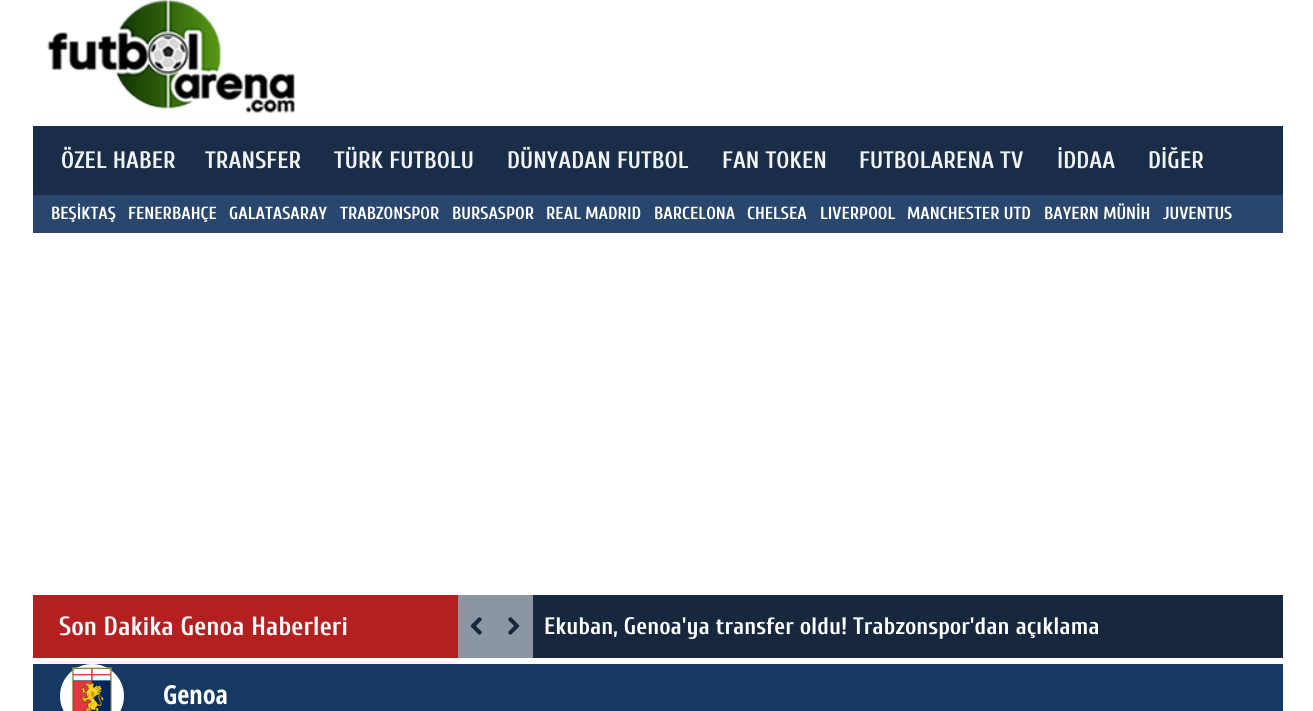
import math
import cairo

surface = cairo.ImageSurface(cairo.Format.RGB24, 1313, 711)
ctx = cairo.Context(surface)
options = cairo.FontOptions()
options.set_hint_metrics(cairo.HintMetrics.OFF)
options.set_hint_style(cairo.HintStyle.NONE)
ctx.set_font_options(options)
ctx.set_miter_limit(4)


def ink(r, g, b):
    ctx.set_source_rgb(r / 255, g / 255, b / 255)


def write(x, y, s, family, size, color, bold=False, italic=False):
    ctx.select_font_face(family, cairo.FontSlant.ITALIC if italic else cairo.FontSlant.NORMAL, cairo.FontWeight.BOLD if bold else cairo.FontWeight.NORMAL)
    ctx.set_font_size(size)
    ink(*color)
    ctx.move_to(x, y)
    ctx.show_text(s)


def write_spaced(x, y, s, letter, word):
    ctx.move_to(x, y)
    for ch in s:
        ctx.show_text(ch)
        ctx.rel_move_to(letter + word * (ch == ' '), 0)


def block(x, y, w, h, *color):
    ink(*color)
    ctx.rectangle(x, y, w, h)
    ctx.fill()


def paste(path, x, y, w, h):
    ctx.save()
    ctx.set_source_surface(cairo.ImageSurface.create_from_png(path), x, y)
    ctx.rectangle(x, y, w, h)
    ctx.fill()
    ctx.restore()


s1 = dict(family="Cuprum", size=17.5, color=(255, 255, 255), bold=True)
s2 = dict(family="Cuprum", size=26.25, color=(255, 255, 255), bold=True)
s3 = dict(family="Cuprum", size=23.75, color=(255, 255, 255), bold=True)
s4 = dict(family="Open Sans Condensed", size=26.25, color=(255, 255, 255), bold=True)

ink(255, 255, 255)
ctx.paint()
paste("pic1.png", 47, 0, 248, 114)
block(33, 126, 1250, 69, 25, 45, 72)
ctx.select_font_face("Cuprum", cairo.FontSlant.NORMAL, cairo.FontWeight.BOLD)
ctx.set_font_size(23.75)
ink(240, 243, 242)
write_spaced(61, 168, "ÖZEL HABER", 0.1, 0)
write_spaced(205, 168, "TRANSFER", 0.1, 0)
write_spaced(334, 168, "TÜRK FUTBOLU", 0.1, 0)
write_spaced(507, 168, "DÜNYADAN FUTBOL", 0.1, 0)
write_spaced(722, 168, "FAN TOKEN", 0.1, 0)
write_spaced(859, 168, "FUTBOLARENA TV", 0.1, 0)
write_spaced(1057, 168, "İDDAA", 0.1, 0)
write_spaced(1148, 168, "DİĞER", 0.1, 0)
block(33, 195, 1250, 38, 41, 70, 110)
write(51, 219, "BEŞİKTAŞ", **s1)
write(128, 219, "FENERBAHÇE", **s1)
write(229, 219, "GALATASARAY", **s1)
write(340, 219, "TRABZONSPOR", **s1)
write(452, 219, "BURSASPOR", **s1)
write(546, 219, "REAL MADRID", **s1)
write(654, 219, "BARCELONA", **s1)
write(747, 219, "CHELSEA", **s1)
write(820, 219, "LIVERPOOL", **s1)
write(907, 219, "MANCHESTER UTD", **s1)
write(1044, 219, "BAYERN MÜNİH", **s1)
write(1163, 219, "JUVENTUS", **s1)
block(533, 595, 750, 63, 23, 39, 62)
block(33, 595, 425, 63, 180, 32, 32)
write(59, 635, "Son Dakika Genoa Haberleri", **s2)
block(458, 595, 75, 63, 140, 150, 162)
paste("pic2.png", 470, 617, 12, 18)
paste("pic3.png", 508, 617, 12, 18)
write(544, 634, "Ekuban, Genoa'ya transfer oldu! Trabzonspor'dan açıklama", **s3)
block(33, 664, 1250, 47, 22, 57, 99)
ink(255, 255, 255)
ctx.new_path()
ctx.arc(92, 696, 30, 0, 2 * math.pi)
ctx.fill_preserve()
ctx.set_line_width(4)
ctx.stroke()
paste("pic4.png", 71, 667, 41, 44)
write(163, 704, "Genoa", **s4)
surface.write_to_png("screenshot.png")
